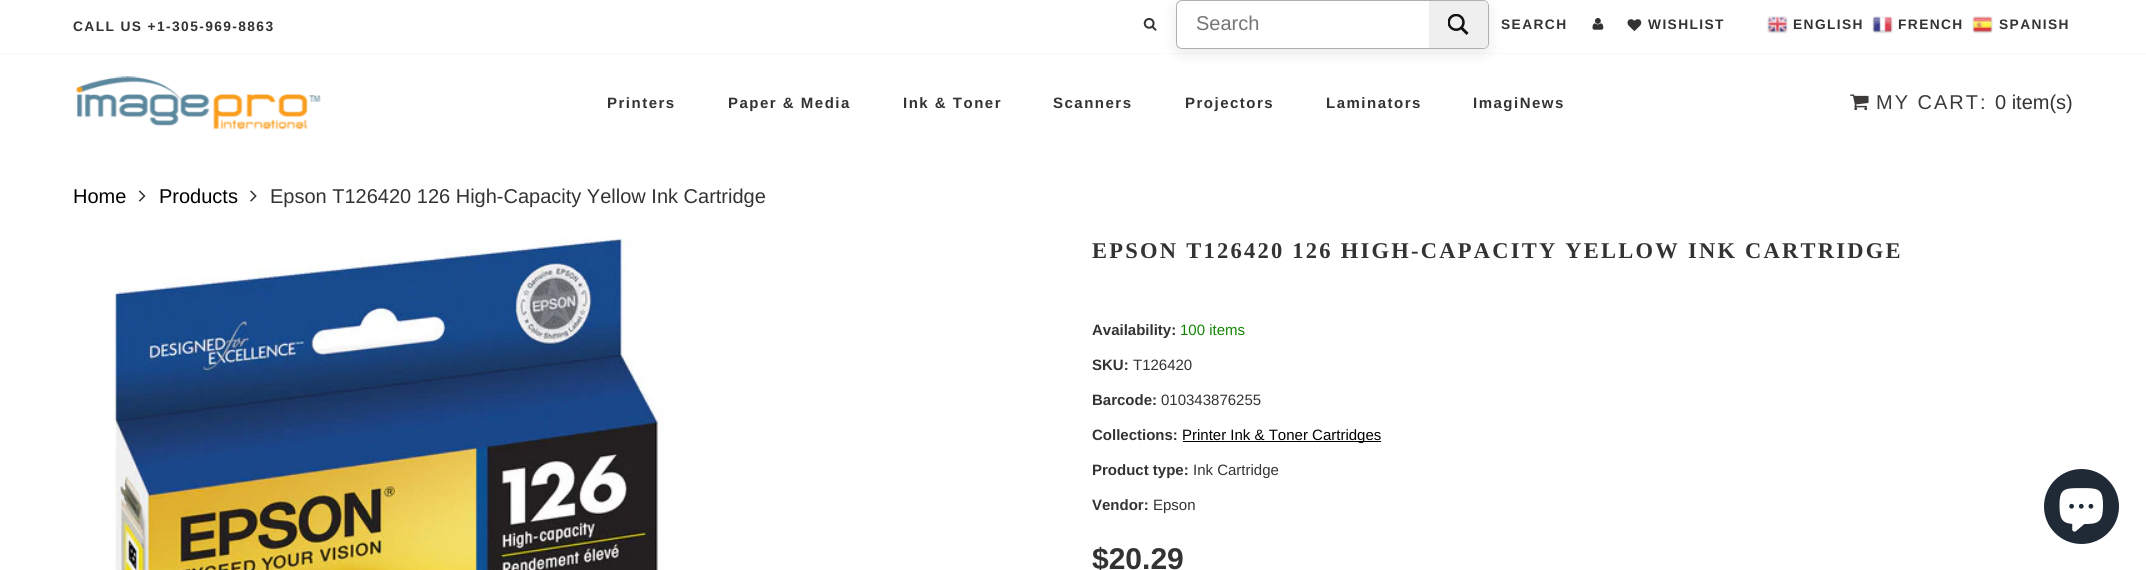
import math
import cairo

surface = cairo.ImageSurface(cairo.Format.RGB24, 2146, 570)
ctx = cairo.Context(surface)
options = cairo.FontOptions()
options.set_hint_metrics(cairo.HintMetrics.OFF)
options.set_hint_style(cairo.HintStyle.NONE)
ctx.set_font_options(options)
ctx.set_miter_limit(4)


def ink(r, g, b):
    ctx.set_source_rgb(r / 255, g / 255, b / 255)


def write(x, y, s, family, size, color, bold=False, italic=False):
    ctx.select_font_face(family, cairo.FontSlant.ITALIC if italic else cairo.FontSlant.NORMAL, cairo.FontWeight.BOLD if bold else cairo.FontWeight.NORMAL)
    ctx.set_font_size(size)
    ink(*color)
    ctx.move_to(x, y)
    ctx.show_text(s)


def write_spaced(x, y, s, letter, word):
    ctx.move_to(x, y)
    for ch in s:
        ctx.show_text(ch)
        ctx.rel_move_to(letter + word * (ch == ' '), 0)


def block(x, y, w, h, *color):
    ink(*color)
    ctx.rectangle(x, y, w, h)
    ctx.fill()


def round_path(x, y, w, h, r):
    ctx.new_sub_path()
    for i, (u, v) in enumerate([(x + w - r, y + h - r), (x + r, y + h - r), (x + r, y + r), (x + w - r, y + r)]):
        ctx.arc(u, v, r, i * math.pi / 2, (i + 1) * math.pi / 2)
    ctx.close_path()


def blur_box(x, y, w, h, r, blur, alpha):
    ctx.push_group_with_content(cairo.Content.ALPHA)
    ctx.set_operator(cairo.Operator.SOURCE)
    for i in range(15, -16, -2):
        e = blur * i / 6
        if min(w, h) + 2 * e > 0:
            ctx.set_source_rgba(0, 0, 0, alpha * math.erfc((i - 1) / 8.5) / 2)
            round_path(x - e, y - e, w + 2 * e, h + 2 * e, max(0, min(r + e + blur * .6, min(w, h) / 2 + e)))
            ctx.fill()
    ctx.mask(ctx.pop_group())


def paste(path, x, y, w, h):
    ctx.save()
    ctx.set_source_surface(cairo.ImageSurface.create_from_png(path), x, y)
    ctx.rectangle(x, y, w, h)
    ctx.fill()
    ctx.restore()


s1 = dict(family="Liberation Sans", size=20, color=(117, 117, 117))
s2 = dict(family="Liberation Sans", size=20, color=(51, 51, 51))
s3 = dict(family="Liberation Sans", size=20, color=(0, 0, 0))
s4 = dict(family="Liberation Sans", size=15, color=(51, 51, 51), bold=True)
s5 = dict(family="Liberation Sans", size=15, color=(17, 133, 2))
s6 = dict(family="Liberation Sans", size=15, color=(51, 51, 51))
s7 = dict(family="Liberation Sans", size=15, color=(0, 0, 0))
s8 = dict(family="Liberation Sans", size=30, color=(51, 51, 51), bold=True)

ink(255, 255, 255)
ctx.paint()
block(0, 53, 2146, 1, 249, 249, 249)
paste("pic2.png", 1143, 17, 14, 14)
ink(0, 0, 0)
blur_box(1176, 5, 313, 49, 6, 7.5, 0.08)
ink(255, 255, 255)
round_path(1176.5, 0.5, 312, 48, 5.5)
ctx.fill_preserve()
ink(176, 176, 176)
ctx.set_line_width(1)
ctx.stroke()
write(1196, 30, "Search", **s1)
ink(240, 239, 239)
ctx.new_path()
ctx.move_to(1429, 1)
ctx.line_to(1483, 1)
ctx.curve_to(1486, 1, 1488, 3, 1488, 6)
ctx.line_to(1488, 43)
ctx.curve_to(1488, 46, 1486, 48, 1483, 48)
ctx.line_to(1429, 48)
ctx.close_path()
ctx.fill()
paste("pic1.png", 1448, 14, 21, 21)
ctx.select_font_face("Liberation Sans", cairo.FontSlant.NORMAL, cairo.FontWeight.BOLD)
ctx.set_font_size(13.75)
ink(51, 51, 51)
write_spaced(73, 31, "CALL US +1-305-969-8863", 1.4, 0)
write_spaced(1501, 29, "SEARCH", 1.4, 0)
paste("pic3.png", 1592, 18, 12, 12)
paste("pic4.png", 1627, 19, 15, 12)
write_spaced(1648, 29, "WISHLIST", 1.4, 0)
paste("pic5.png", 1767, 16, 21, 18)
write_spaced(1793, 29, "ENGLISH", 1.4, 0)
paste("pic6.png", 1872, 16, 21, 18)
write_spaced(1898, 29, "FRENCH", 1.4, 0)
paste("pic7.png", 1972, 16, 21, 18)
write_spaced(1999, 29, "SPANISH", 1.4, 0)
paste("pic8.png", 76, 76, 245, 54)
ctx.set_font_size(15)
write_spaced(607, 108, "Printers", 1.5, 0)
write_spaced(728, 108, "Paper & Media", 1.5, 0)
write_spaced(903, 108, "Ink & Toner", 1.5, 0)
write_spaced(1053, 108, "Scanners", 1.5, 0)
write_spaced(1185, 108, "Projectors", 1.5, 0)
write_spaced(1326, 108, "Laminators", 1.5, 0)
write_spaced(1473, 108, "ImagiNews", 1.5, 0)
paste("pic9.png", 1850, 94, 19, 17)
ctx.select_font_face("Liberation Sans")
ctx.set_font_size(20)
ink(61, 58, 58)
write_spaced(1876, 109, "MY CART:", 2, 0)
write(1995, 109, "0 item(s)", **s2)
write(73, 203, "Home", **s3)
paste("pic10.png", 138, 190, 8, 12)
write(159, 203, "Products", **s3)
paste("pic11.png", 250, 190, 7, 12)
write(270, 203, "Epson T126420 126 High-Capacity Yellow Ink Cartridge", **s2)
paste("pic12.png", 114, 239, 550, 331)
ctx.select_font_face("Liberation Serif", cairo.FontSlant.NORMAL, cairo.FontWeight.BOLD)
ctx.set_font_size(22.5)
write_spaced(1092, 258, "EPSON T126420 126 HIGH-CAPACITY YELLOW INK CARTRIDGE", 2.25, 0)
write(1092, 335, "Availability:", **s4)
write(1180, 335, "100 items", **s5)
write(1092, 370, "SKU:", **s4)
write(1133, 370, "T126420", **s6)
write(1092, 405, "Barcode:", **s4)
write(1161, 405, "010343876255", **s6)
write(1092, 440, "Collections:", **s4)
block(1183, 441, 198, 1, 0, 0, 0)
write(1182, 440, "Printer Ink & Toner Cartridges", **s7)
write(1092, 475, "Product type:", **s4)
write(1193, 475, "Ink Cartridge", **s6)
write(1092, 510, "Vendor:", **s4)
write(1153, 510, "Epson", **s6)
write(1092, 569, "$20.29", **s8)
ink(32, 42, 54)
ctx.new_path()
ctx.arc(2081.5, 506.5, 37.5, 0, 2 * math.pi)
ctx.fill()
paste("pic13.png", 2059, 488, 44, 44)
surface.write_to_png("screenshot.png")
